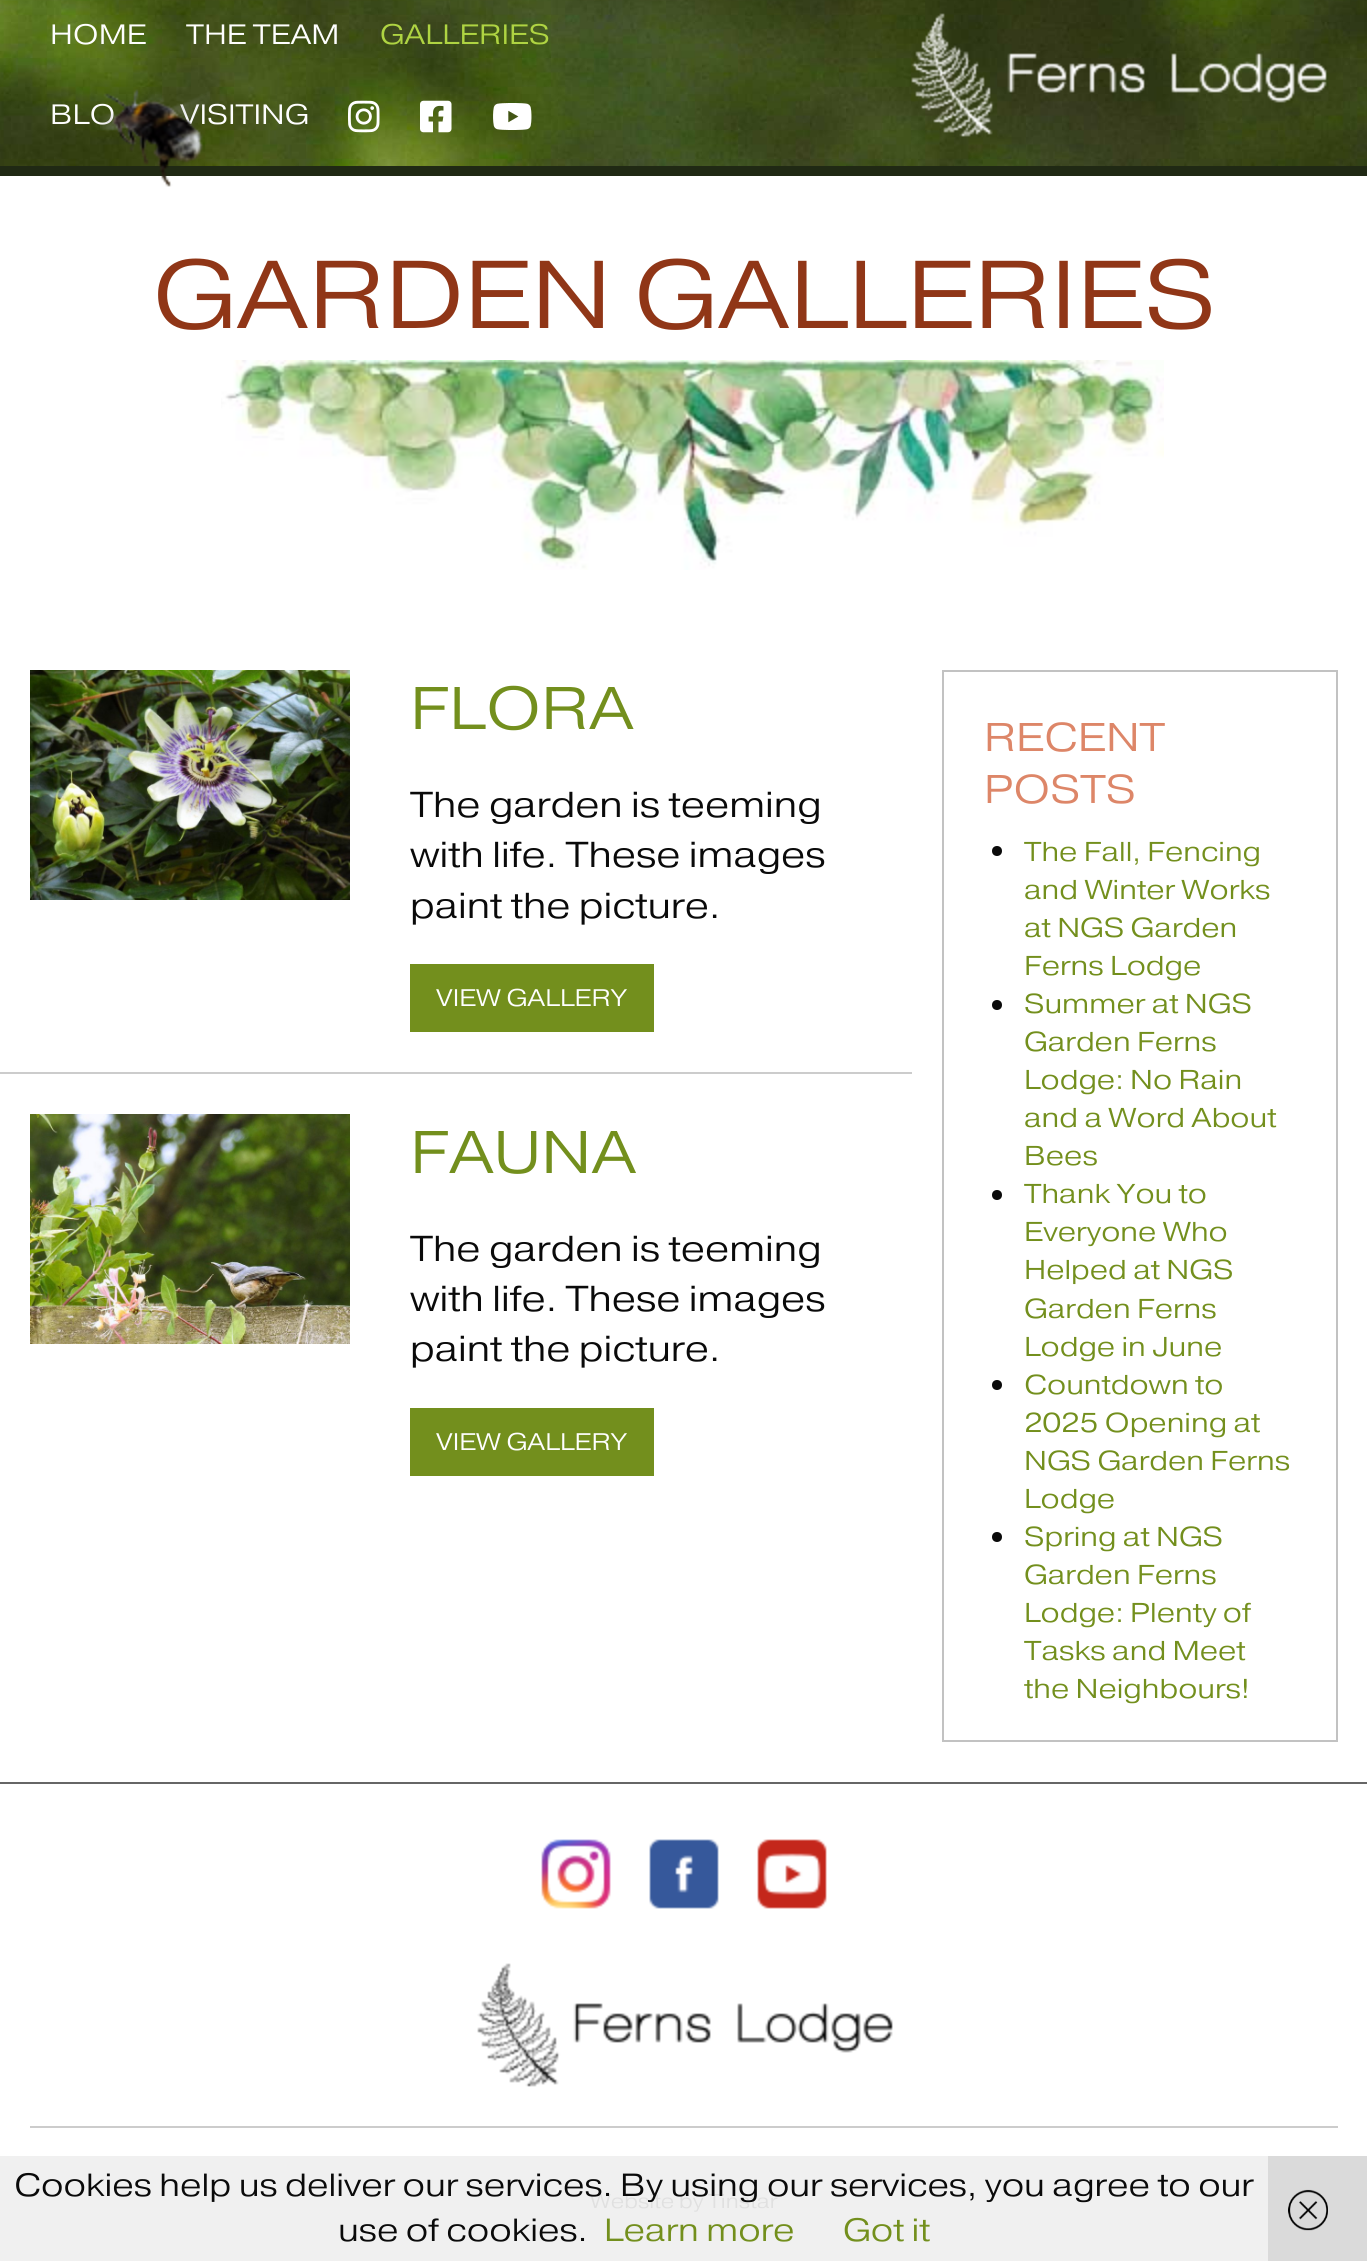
import math
import cairo

surface = cairo.ImageSurface(cairo.Format.RGB24, 1367, 2261)
ctx = cairo.Context(surface)
options = cairo.FontOptions()
options.set_hint_metrics(cairo.HintMetrics.OFF)
options.set_hint_style(cairo.HintStyle.NONE)
ctx.set_font_options(options)
ctx.set_miter_limit(4)


def ink(r, g, b):
    ctx.set_source_rgb(r / 255, g / 255, b / 255)


def write(x, y, s, family, size, color, bold=False, italic=False):
    ctx.select_font_face(family, cairo.FontSlant.ITALIC if italic else cairo.FontSlant.NORMAL, cairo.FontWeight.BOLD if bold else cairo.FontWeight.NORMAL)
    ctx.set_font_size(size)
    ink(*color)
    ctx.move_to(x, y)
    ctx.show_text(s)


def block(x, y, w, h, *color):
    ink(*color)
    ctx.rectangle(x, y, w, h)
    ctx.fill()


def paste(path, x, y, w, h):
    ctx.save()
    ctx.set_source_surface(cairo.ImageSurface.create_from_png(path), x, y)
    ctx.rectangle(x, y, w, h)
    ctx.fill()
    ctx.restore()


s1 = dict(family="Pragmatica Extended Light", size=28, color=(254, 254, 254))
s2 = dict(family="Pragmatica Extended Light", size=28, color=(175, 212, 66))
s3 = dict(family="Pragmatica Extended Light", size=96, color=(144, 54, 23))
s4 = dict(family="Pragmatica Extended Light", size=60, color=(115, 143, 29))
s5 = dict(family="Pragmatica Extended Light", size=36, color=(10, 10, 10))
s6 = dict(family="Pragmatica Extended Light", size=24, color=(254, 254, 254))
s7 = dict(family="Pragmatica Extended Light", size=40, color=(221, 134, 104))
s8 = dict(family="Pragmatica Extended Light", size=27.25, color=(115, 143, 29))
s9 = dict(family="Pragmatica Extended Light", size=20, color=(224, 224, 224))
s10 = dict(family="Pragmatica Extended Light", size=32, color=(10, 10, 10))
s11 = dict(family="Pragmatica Extended Light", size=32, color=(115, 143, 29))

ink(255, 255, 255)
ctx.paint()
block(0, 2156, 1268, 105, 240, 240, 240)
paste("pic1.png", 0, 0, 1367, 166)
block(0, 166, 1367, 10, 32, 41, 20)
write(50, 44, "HOME", **s1)
write(186, 44, "THE TEAM", **s1)
write(380, 44, "GALLERIES", **s2)
write(50, 124, "BLO", **s1)
write(180, 124, "VISITING", **s1)
paste("pic2.png", 348, 100, 32, 33)
paste("pic3.png", 420, 100, 32, 33)
paste("pic4.png", 493, 103, 39, 27)
paste("pic5.png", 911, 13, 416, 124)
paste("pic6.png", 100, 89, 110, 98)
paste("pic7.png", 221, 360, 943, 210)
write(153, 328, "GARDEN GALLERIES", **s3)
block(0, 1072, 912, 2, 204, 204, 204)
paste("pic8.png", 30, 670, 320, 230)
write(410, 729, "FLORA", **s4)
write(410, 817, "The garden is teeming", **s5)
write(410, 867, "with life. These images", **s5)
write(410, 918, "paint the picture.", **s5)
block(410, 964, 244, 68, 115, 143, 29)
write(436, 1006, "VIEW GALLERY", **s6)
paste("pic9.png", 30, 1114, 320, 230)
write(410, 1173, "FAUNA", **s4)
write(410, 1261, "The garden is teeming", **s5)
write(410, 1311, "with life. These images", **s5)
write(410, 1361, "paint the picture.", **s5)
block(410, 1408, 244, 68, 115, 143, 29)
write(436, 1450, "VIEW GALLERY", **s6)
ctx.rectangle(943, 671, 394, 1070)
ink(194, 194, 194)
ctx.stroke()
write(984, 751, "RECENT", **s7)
write(984, 803, "POSTS", **s7)
ink(10, 10, 10)
ctx.new_path()
ctx.arc(997, 851, 5, 0, 2 * math.pi)
ctx.fill()
write(1024, 861, "The Fall, Fencing", **s8)
write(1024, 899, "and Winter Works", **s8)
write(1024, 937, "at NGS Garden", **s8)
write(1024, 975, "Ferns Lodge", **s8)
ink(10, 10, 10)
ctx.new_path()
ctx.arc(997, 1005, 5, 0, 2 * math.pi)
ctx.fill()
write(1024, 1013, "Summer at NGS", **s8)
write(1024, 1051, "Garden Ferns", **s8)
write(1024, 1089, "Lodge: No Rain", **s8)
write(1024, 1127, "and a Word About", **s8)
write(1024, 1165, "Bees", **s8)
ink(10, 10, 10)
ctx.new_path()
ctx.arc(997, 1195, 5, 0, 2 * math.pi)
ctx.fill()
write(1024, 1203, "Thank You to", **s8)
write(1024, 1241, "Everyone Who", **s8)
write(1024, 1279, "Helped at NGS", **s8)
write(1024, 1318, "Garden Ferns", **s8)
write(1024, 1356, "Lodge in June", **s8)
ink(10, 10, 10)
ctx.new_path()
ctx.arc(997, 1385, 5, 0, 2 * math.pi)
ctx.fill()
write(1024, 1394, "Countdown to", **s8)
write(1024, 1432, "2025 Opening at", **s8)
write(1024, 1470, "NGS Garden Ferns", **s8)
write(1024, 1508, "Lodge", **s8)
ink(10, 10, 10)
ctx.new_path()
ctx.arc(997, 1537, 5, 0, 2 * math.pi)
ctx.fill()
write(1024, 1546, "Spring at NGS", **s8)
write(1024, 1584, "Garden Ferns", **s8)
write(1024, 1622, "Lodge: Plenty of", **s8)
write(1024, 1660, "Tasks and Meet", **s8)
write(1024, 1698, "the Neighbours!", **s8)
write(590, 2208, "Website by Tinstar", **s9)
write(14, 2196, "Cookies help us deliver our services. By using our services, you agree to our", **s10)
write(338, 2241, "use of cookies.", **s10)
write(604, 2241, "Learn more", **s11)
write(843, 2241, "Got it", **s11)
block(1268, 2156, 99, 105, 218, 218, 218)
paste("pic10.png", 1288, 2189, 40, 42)
block(0, 1782, 1367, 2, 102, 102, 102)
paste("pic11.png", 541, 1839, 70, 70)
paste("pic12.png", 649, 1839, 70, 70)
paste("pic13.png", 757, 1839, 70, 70)
paste("pic14.png", 477, 1963, 416, 124)
block(30, 2126, 1308, 2, 204, 204, 204)
surface.write_to_png("screenshot.png")
